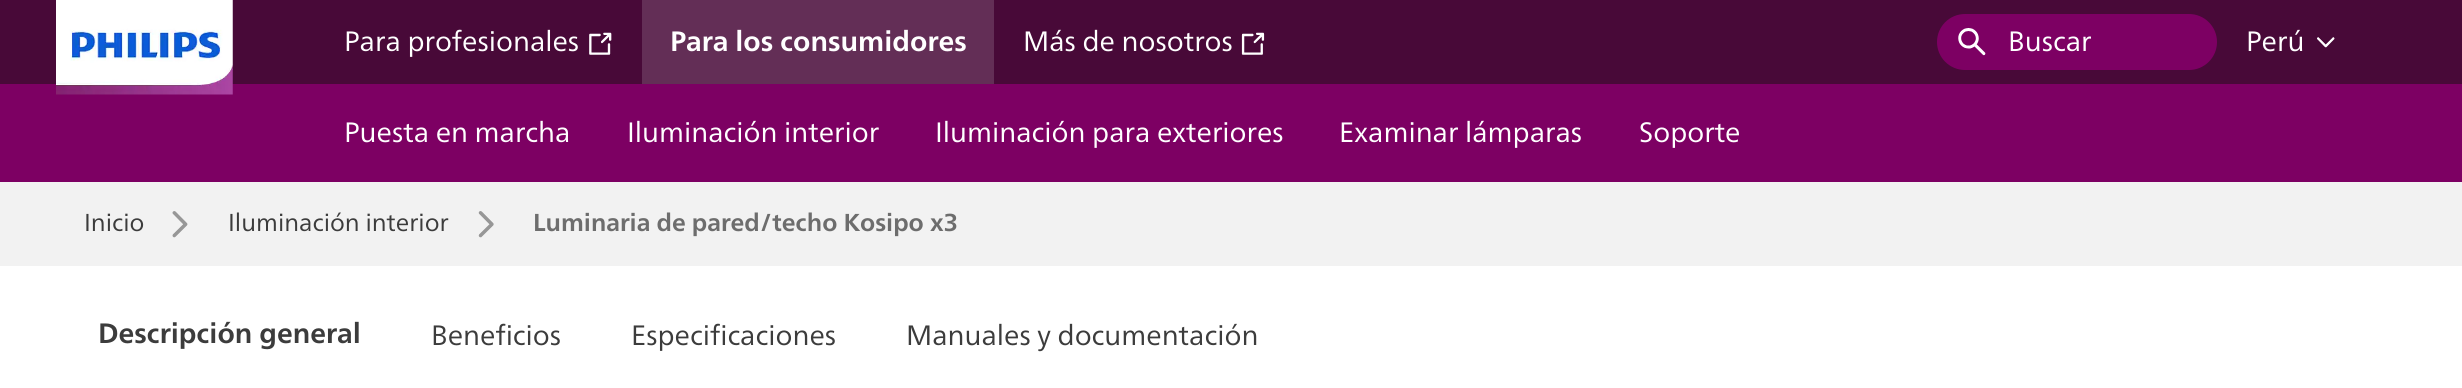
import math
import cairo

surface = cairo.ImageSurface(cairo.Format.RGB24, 2462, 388)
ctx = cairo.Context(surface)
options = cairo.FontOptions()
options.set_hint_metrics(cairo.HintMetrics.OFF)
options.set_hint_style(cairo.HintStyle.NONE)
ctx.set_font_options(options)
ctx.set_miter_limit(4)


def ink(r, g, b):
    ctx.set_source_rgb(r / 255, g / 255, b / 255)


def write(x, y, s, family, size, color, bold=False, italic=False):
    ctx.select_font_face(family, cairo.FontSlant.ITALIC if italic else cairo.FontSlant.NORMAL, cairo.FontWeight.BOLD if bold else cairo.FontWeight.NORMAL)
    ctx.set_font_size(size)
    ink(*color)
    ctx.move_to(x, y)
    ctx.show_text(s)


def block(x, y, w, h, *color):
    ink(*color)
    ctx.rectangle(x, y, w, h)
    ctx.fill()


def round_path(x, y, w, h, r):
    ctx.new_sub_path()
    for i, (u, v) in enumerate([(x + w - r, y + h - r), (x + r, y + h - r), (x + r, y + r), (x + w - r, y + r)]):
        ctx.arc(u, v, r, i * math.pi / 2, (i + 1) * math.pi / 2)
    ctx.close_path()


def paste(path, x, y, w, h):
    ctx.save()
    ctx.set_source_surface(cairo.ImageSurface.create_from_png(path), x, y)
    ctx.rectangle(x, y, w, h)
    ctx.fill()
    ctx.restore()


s1 = dict(family="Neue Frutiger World", size=28, color=(255, 255, 255))
s2 = dict(family="Neue Frutiger World", size=28, color=(255, 255, 255), bold=True)
s3 = dict(family="Neue Frutiger World", size=24.5, color=(60, 60, 60))
s4 = dict(family="Neue Frutiger World", size=24.5, color=(109, 109, 109), bold=True)
s5 = dict(family="Neue Frutiger World", size=28, color=(60, 60, 60), bold=True)
s6 = dict(family="Neue Frutiger World", size=28, color=(60, 60, 60))

ink(255, 255, 255)
ctx.paint()
block(0, 0, 2462, 84, 72, 9, 56)
block(0, 84, 2462, 98, 125, 0, 99)
paste("pic1.png", 56, 0, 177, 95)
write(344, 51, "Para profesionales", **s1)
paste("pic2.png", 589, 32, 23, 23)
block(642, 0, 352, 84, 99, 46, 86)
write(670, 51, "Para los consumidores", **s2)
write(1023, 51, "Más de nosotros", **s1)
paste("pic3.png", 1241, 32, 24, 23)
ink(125, 0, 99)
round_path(1937, 14, 280, 56, 28)
ctx.fill()
paste("pic4.png", 1958, 28, 28, 28)
write(2008, 51, "Buscar", **s1)
write(2246, 51, "Perú", **s1)
paste("pic5.png", 2317, 37, 18, 11)
write(344, 142, "Puesta en marcha", **s1)
write(627, 142, "Iluminación interior", **s1)
write(935, 142, "Iluminación para exteriores", **s1)
write(1339, 142, "Examinar lámparas", **s1)
write(1639, 142, "Soporte", **s1)
block(0, 182, 2462, 84, 242, 242, 242)
write(84, 231, "Inicio", **s3)
paste("pic6.png", 172, 211, 16, 27)
write(228, 231, "Iluminación interior", **s3)
paste("pic7.png", 478, 211, 16, 27)
write(533, 231, "Luminaria de pared/techo Kosipo x3", **s4)
write(98, 343, "Descripción general", **s5)
write(431, 345, "Beneficios", **s6)
write(631, 345, "Especificaciones", **s6)
write(906, 345, "Manuales y documentación", **s6)
surface.write_to_png("screenshot.png")
